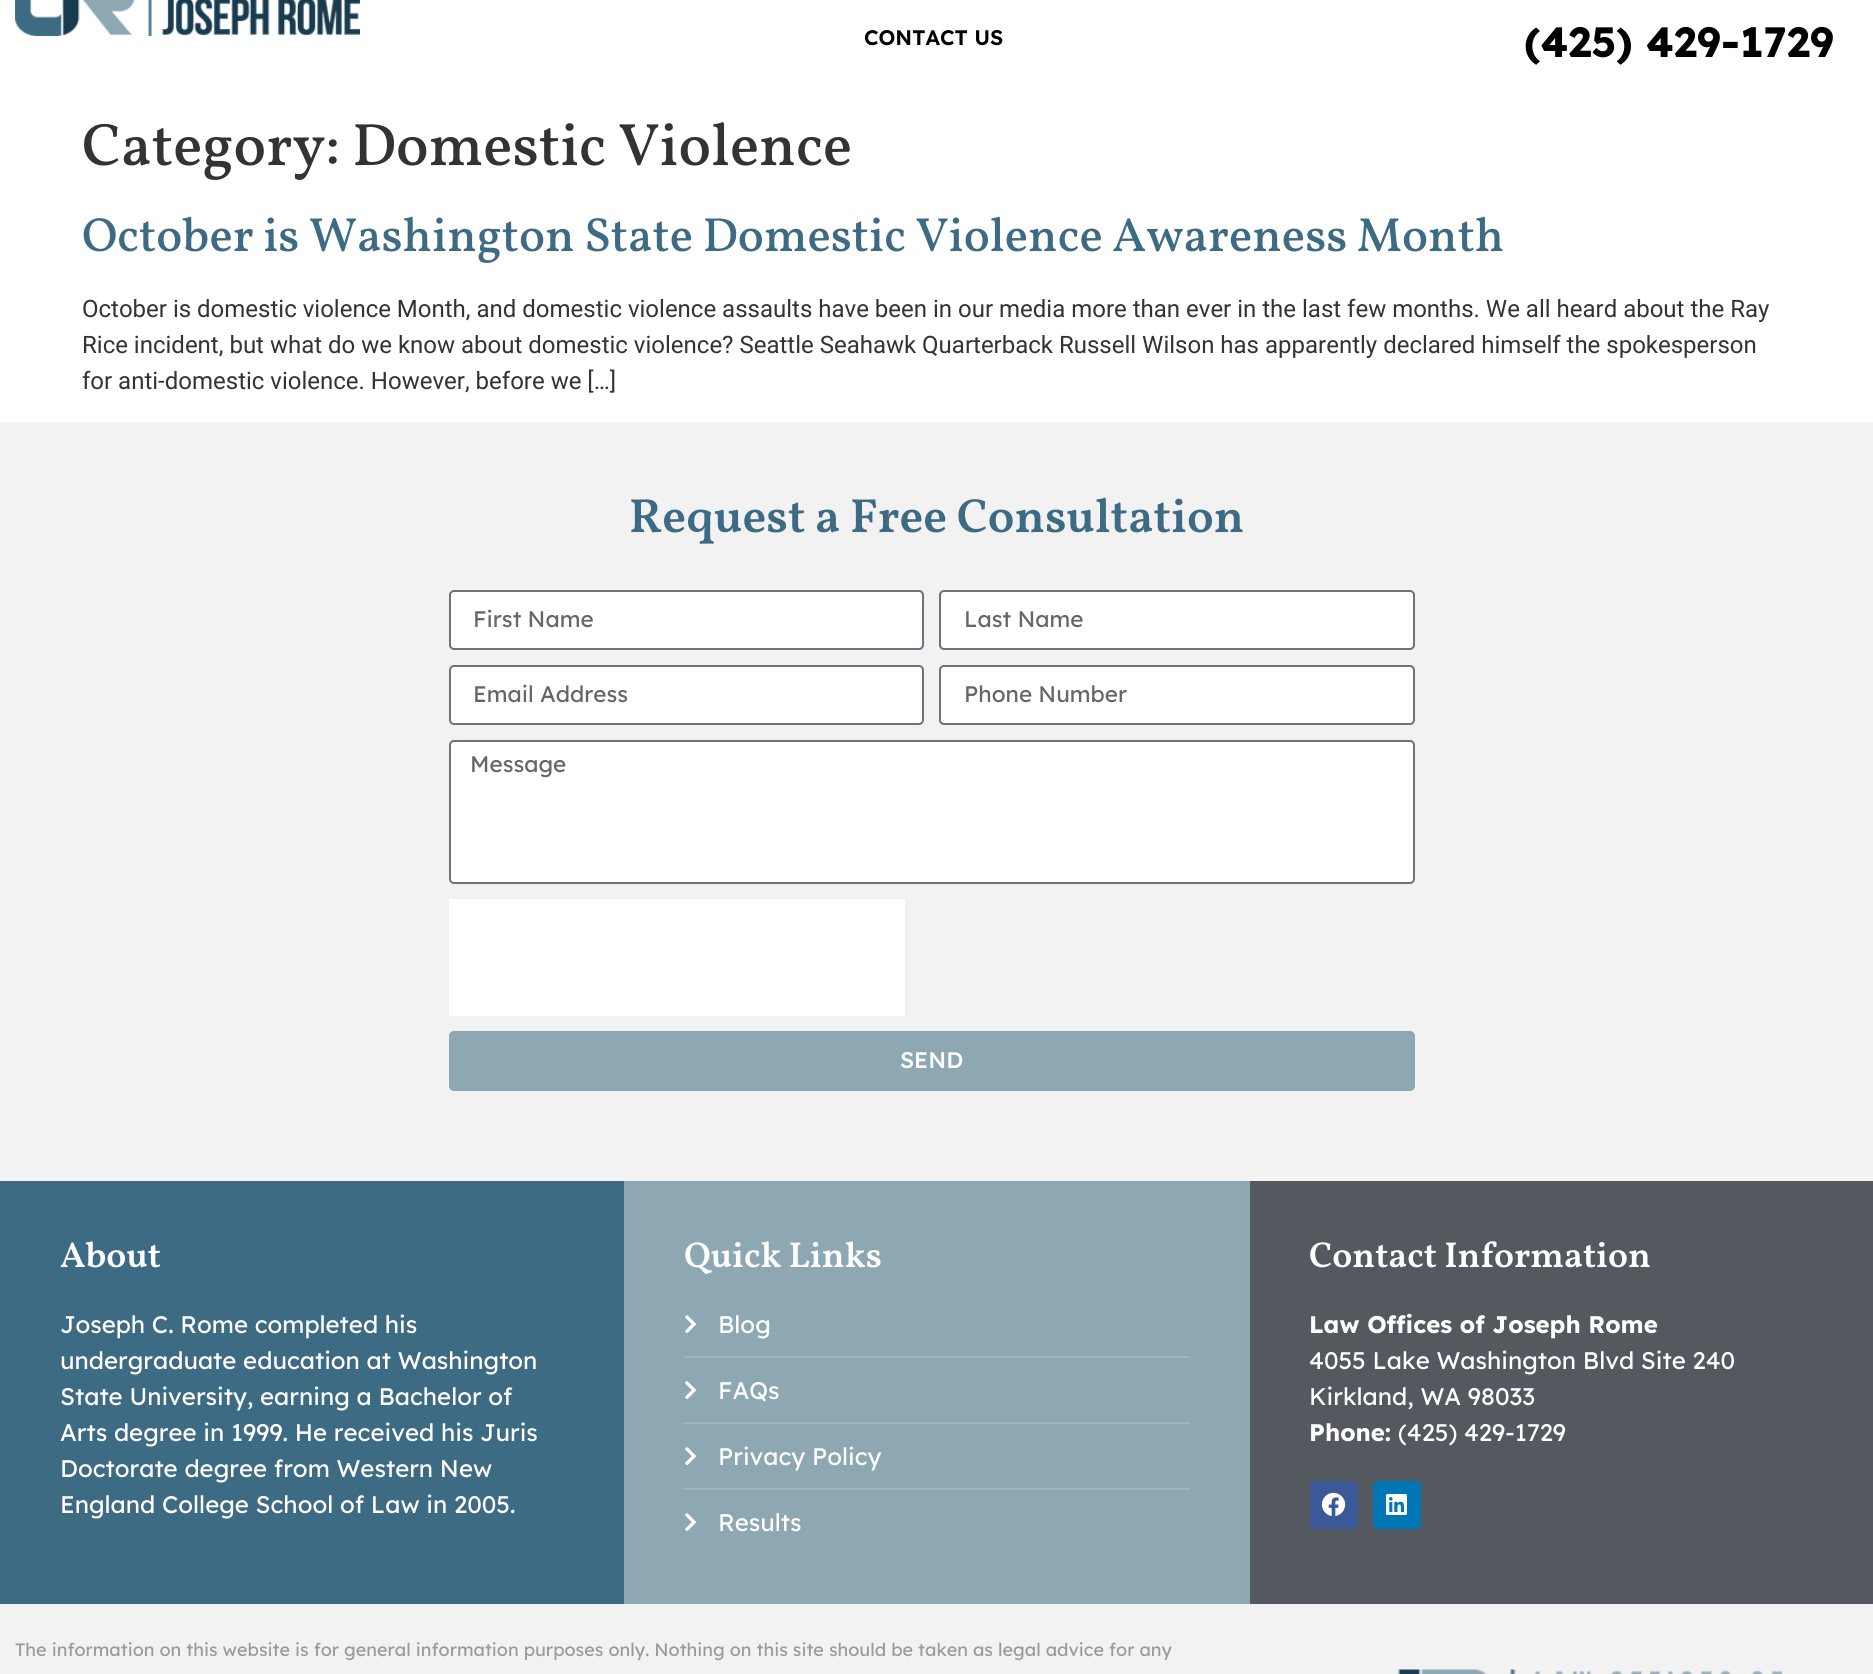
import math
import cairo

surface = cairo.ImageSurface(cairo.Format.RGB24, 1873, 1674)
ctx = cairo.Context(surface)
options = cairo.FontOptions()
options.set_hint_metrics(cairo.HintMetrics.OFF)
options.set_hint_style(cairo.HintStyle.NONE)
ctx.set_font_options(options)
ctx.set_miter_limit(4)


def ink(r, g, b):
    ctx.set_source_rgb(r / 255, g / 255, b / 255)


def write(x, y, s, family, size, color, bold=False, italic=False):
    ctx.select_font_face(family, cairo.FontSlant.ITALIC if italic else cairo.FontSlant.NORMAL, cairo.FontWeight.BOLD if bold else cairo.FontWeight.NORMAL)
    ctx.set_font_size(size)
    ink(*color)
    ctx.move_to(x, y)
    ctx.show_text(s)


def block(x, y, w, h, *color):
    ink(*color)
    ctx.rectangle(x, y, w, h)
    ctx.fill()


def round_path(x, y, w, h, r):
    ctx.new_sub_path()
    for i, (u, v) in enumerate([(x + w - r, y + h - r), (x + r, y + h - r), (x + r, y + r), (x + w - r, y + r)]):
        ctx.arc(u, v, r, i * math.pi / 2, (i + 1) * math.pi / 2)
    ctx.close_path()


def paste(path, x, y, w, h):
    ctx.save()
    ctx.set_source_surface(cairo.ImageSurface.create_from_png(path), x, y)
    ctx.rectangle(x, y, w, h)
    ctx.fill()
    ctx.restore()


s1 = dict(family="Lexend Deca SemiBold", size=21, color=(0, 0, 0))
s2 = dict(family="Lexend Deca", size=42, color=(0, 0, 0), bold=True)
s3 = dict(family="Vollkorn Medium", size=60, color=(51, 51, 51))
s4 = dict(family="Vollkorn Medium", size=48, color=(62, 107, 132))
s5 = dict(family="Roboto", size=24, color=(51, 51, 51))
s6 = dict(family="Vollkorn SemiBold", size=48, color=(62, 107, 132))
s7 = dict(family="Lexend Deca", size=22.5, color=(102, 102, 102))
s8 = dict(family="Lexend Deca Medium", size=22.5, color=(255, 255, 255))
s9 = dict(family="Vollkorn SemiBold", size=36, color=(255, 255, 255))
s10 = dict(family="Lexend Deca", size=24, color=(255, 255, 255))
s11 = dict(family="Lexend Deca", size=24, color=(255, 255, 255), bold=True)
s12 = dict(family="Lexend Deca", size=18, color=(154, 154, 154))

ink(255, 255, 255)
ctx.paint()
paste("pic1.png", 15, 0, 345, 36)
write(864, 45, "CONTACT US", **s1)
write(1524, 57, "(425) 429-1729", **s2)
write(82, 165, "Category: Domestic Violence", **s3)
write(82, 251, "October is Washington State Domestic Violence Awareness Month", **s4)
write(82, 317, "October is domestic violence Month, and domestic violence assaults have been in our media more than ever in the last few months. We all heard about the Ray", **s5)
write(82, 353, "Rice incident, but what do we know about domestic violence? Seattle Seahawk Quarterback Russell Wilson has apparently declared himself the spokesperson", **s5)
write(82, 389, "for anti-domestic violence. However, before we […]", **s5)
block(0, 422, 1873, 759, 242, 242, 242)
write(629, 532, "Request a Free Consultation", **s6)
ink(255, 255, 255)
round_path(450, 591, 473, 58, 4)
ctx.fill_preserve()
ink(105, 114, 125)
ctx.stroke()
write(473, 627, "First Name", **s7)
ink(255, 255, 255)
round_path(940, 591, 474, 58, 4)
ctx.fill_preserve()
ink(105, 114, 125)
ctx.stroke()
write(964, 627, "Last Name", **s7)
ink(255, 255, 255)
round_path(450, 666, 473, 58, 4)
ctx.fill_preserve()
ink(105, 114, 125)
ctx.stroke()
write(473, 702, "Email Address", **s7)
ink(255, 255, 255)
round_path(940, 666, 474, 58, 4)
ctx.fill_preserve()
ink(105, 114, 125)
ctx.stroke()
write(964, 702, "Phone Number", **s7)
ink(255, 255, 255)
round_path(450, 741, 964, 142, 4)
ctx.fill_preserve()
ink(105, 114, 125)
ctx.stroke()
write(470, 772, "Message", **s7)
block(449, 899, 456, 117, 255, 255, 255)
ink(141, 168, 179)
round_path(449, 1031, 966, 60, 5)
ctx.fill()
write(900, 1068, "SEND", **s8)
block(0, 1181, 624, 423, 62, 107, 132)
write(60, 1267, "About", **s9)
write(60, 1333, "Joseph C. Rome completed his", **s10)
write(60, 1369, "undergraduate education at Washington", **s10)
write(60, 1405, "State University, earning a Bachelor of", **s10)
write(60, 1441, "Arts degree in 1999. He received his Juris", **s10)
write(60, 1477, "Doctorate degree from Western New", **s10)
write(60, 1513, "England College School of Law in 2005.", **s10)
block(624, 1181, 626, 423, 141, 168, 179)
write(684, 1267, "Quick Links", **s9)
paste("pic2.png", 685, 1315, 11, 18)
write(718, 1333, "Blog", **s10)
block(684, 1356, 506, 2, 159, 181, 190)
paste("pic2.png", 685, 1381, 11, 18)
write(718, 1399, "FAQs", **s10)
block(684, 1422, 506, 2, 159, 181, 190)
paste("pic2.png", 685, 1447, 11, 18)
write(718, 1465, "Privacy Policy", **s10)
block(684, 1488, 506, 2, 159, 181, 190)
paste("pic2.png", 685, 1513, 11, 18)
write(718, 1531, "Results", **s10)
block(1250, 1181, 623, 423, 84, 89, 95)
write(1309, 1267, "Contact Information", **s9)
write(1309, 1333, "Law Offices of Joseph Rome", **s11)
write(1309, 1369, "4055 Lake Washington Blvd Site 240", **s10)
write(1309, 1405, "Kirkland, WA 98033", **s10)
write(1309, 1441, "Phone:", **s11)
write(1398, 1441, "(425) 429-1729", **s10)
ink(59, 89, 152)
round_path(1310, 1481, 48, 48, 5)
ctx.fill()
paste("pic3.png", 1321, 1492, 25, 24)
ink(0, 119, 181)
round_path(1373, 1481, 48, 48, 5)
ctx.fill()
paste("pic4.png", 1386, 1494, 21, 21)
block(0, 1604, 1873, 70, 242, 242, 242)
write(15, 1656, "The information on this website is for general information purposes only. Nothing on this site should be taken as legal advice for any", **s12)
paste("pic5.png", 1397, 1669, 386, 5)
surface.write_to_png("screenshot.png")
